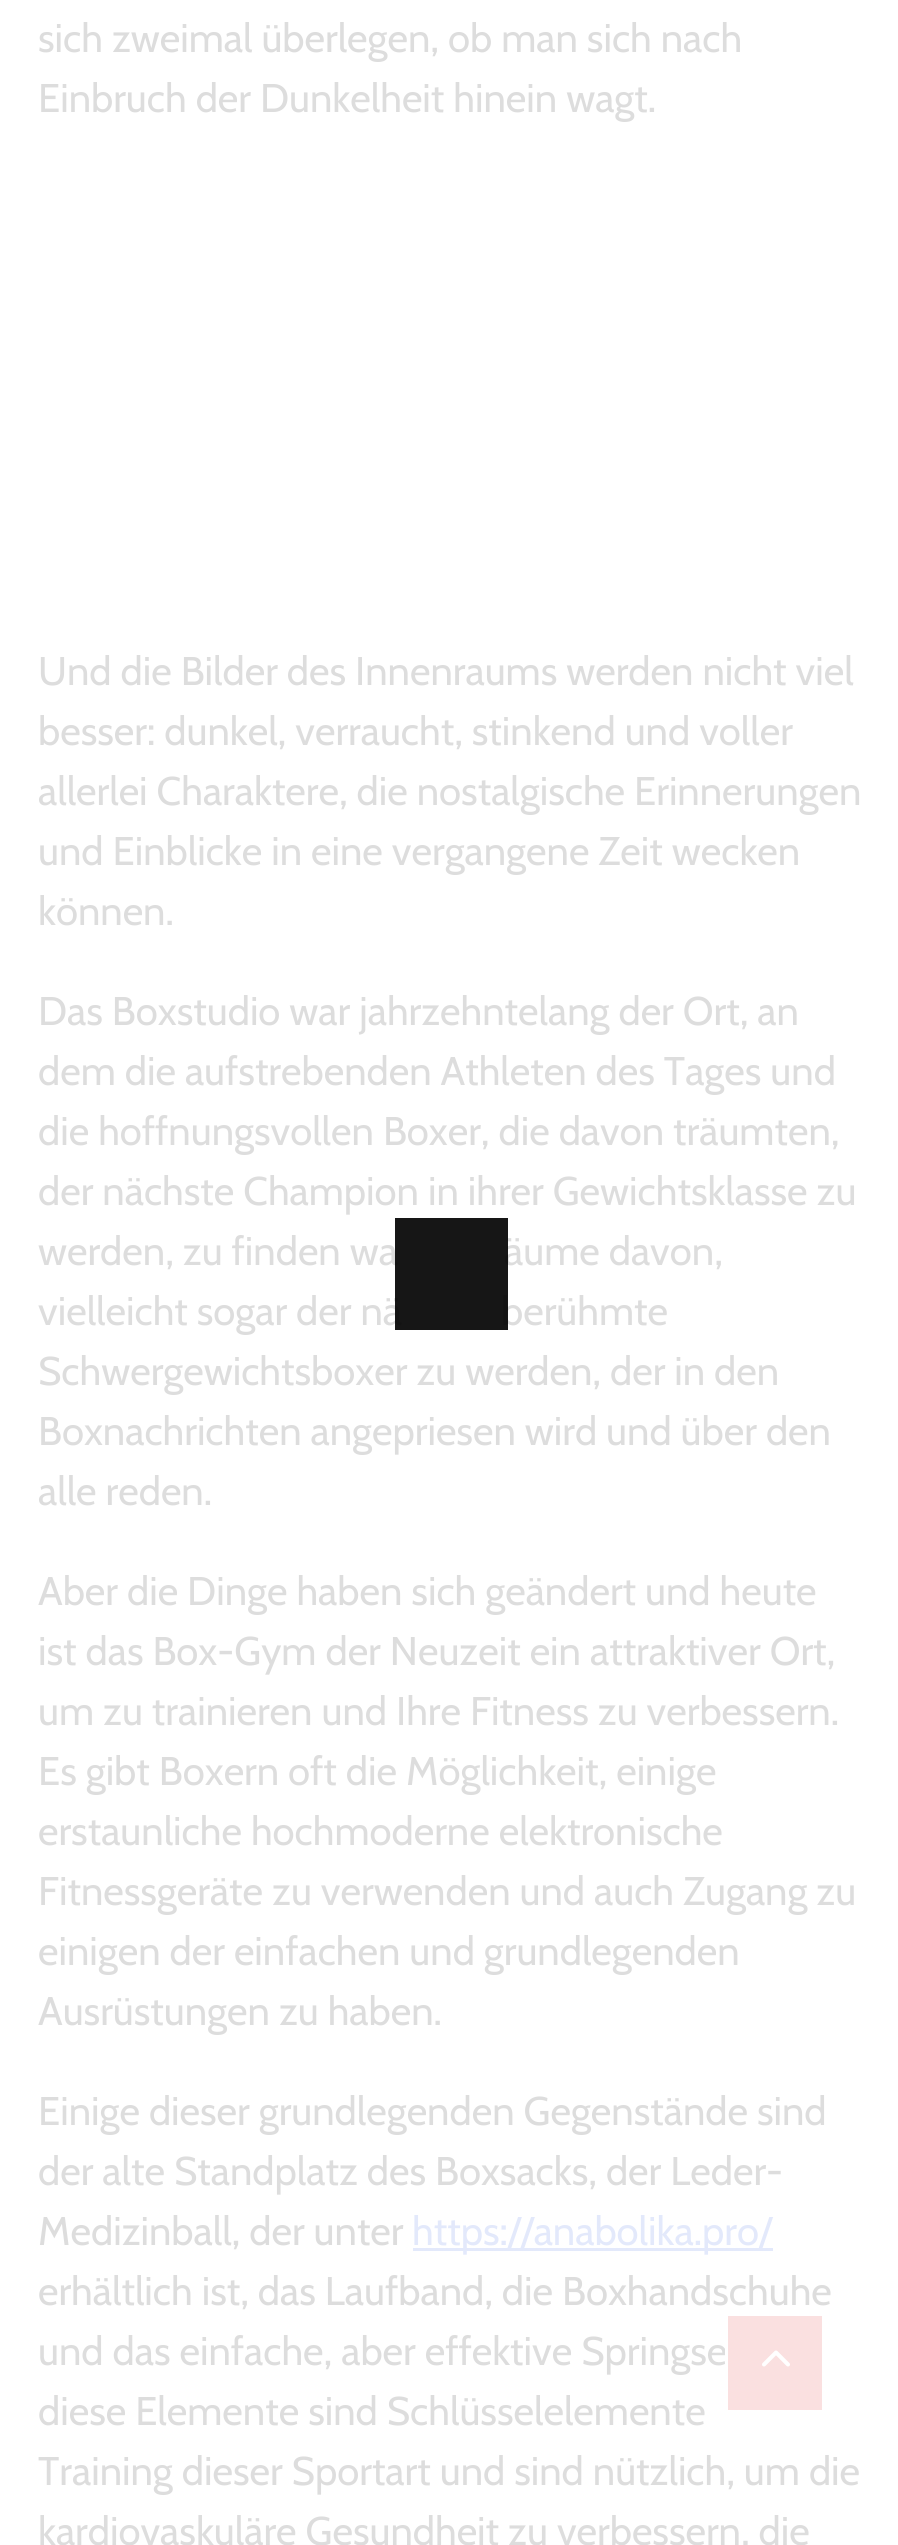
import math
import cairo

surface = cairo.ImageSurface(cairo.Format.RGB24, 898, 2545)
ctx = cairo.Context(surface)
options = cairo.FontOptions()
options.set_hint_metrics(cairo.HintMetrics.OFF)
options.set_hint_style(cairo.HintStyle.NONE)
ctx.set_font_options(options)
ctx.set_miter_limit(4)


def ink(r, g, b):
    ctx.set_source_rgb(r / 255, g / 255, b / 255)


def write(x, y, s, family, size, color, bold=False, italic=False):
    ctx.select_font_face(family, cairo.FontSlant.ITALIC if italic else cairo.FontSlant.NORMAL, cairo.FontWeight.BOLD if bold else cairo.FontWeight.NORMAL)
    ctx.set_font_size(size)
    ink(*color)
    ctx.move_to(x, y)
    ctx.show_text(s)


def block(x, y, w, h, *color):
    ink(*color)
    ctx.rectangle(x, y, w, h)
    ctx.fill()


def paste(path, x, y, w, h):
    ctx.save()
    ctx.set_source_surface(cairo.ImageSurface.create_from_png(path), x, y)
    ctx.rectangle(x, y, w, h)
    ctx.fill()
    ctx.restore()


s1 = dict(family="Cabin", size=40, color=(221, 221, 221))
s2 = dict(family="Cabin", size=40, color=(227, 233, 251))

ink(255, 255, 255)
ctx.paint()
write(38, 52, "sich zweimal überlegen, ob man sich nach", **s1)
write(38, 112, "Einbruch der Dunkelheit hinein wagt.", **s1)
write(38, 685, "Und die Bilder des Innenraums werden nicht viel", **s1)
write(38, 745, "besser: dunkel, verraucht, stinkend und voller", **s1)
write(38, 805, "allerlei Charaktere, die nostalgische Erinnerungen", **s1)
write(38, 865, "und Einblicke in eine vergangene Zeit wecken", **s1)
write(38, 925, "können.", **s1)
write(38, 1025, "Das Boxstudio war jahrzehntelang der Ort, an", **s1)
write(38, 1085, "dem die aufstrebenden Athleten des Tages und", **s1)
write(38, 1145, "die hoffnungsvollen Boxer, die davon träumten,", **s1)
write(38, 1205, "der nächste Champion in ihrer Gewichtsklasse zu", **s1)
write(38, 1265, "werden, zu finden wa", **s1)
write(504, 1265, "äume davon,", **s1)
write(38, 1325, "vielleicht sogar der nä", **s1)
write(501, 1325, "berühmte", **s1)
write(38, 1385, "Schwergewichtsboxer zu werden, der in den", **s1)
write(38, 1445, "Boxnachrichten angepriesen wird und über den", **s1)
write(38, 1505, "alle reden.", **s1)
write(38, 1605, "Aber die Dinge haben sich geändert und heute", **s1)
write(38, 1665, "ist das Box-Gym der Neuzeit ein attraktiver Ort,", **s1)
write(38, 1725, "um zu trainieren und Ihre Fitness zu verbessern.", **s1)
write(38, 1785, "Es gibt Boxern oft die Möglichkeit, einige", **s1)
write(38, 1845, "erstaunliche hochmoderne elektronische", **s1)
write(38, 1905, "Fitnessgeräte zu verwenden und auch Zugang zu", **s1)
write(38, 1965, "einigen der einfachen und grundlegenden", **s1)
write(38, 2025, "Ausrüstungen zu haben.", **s1)
write(38, 2125, "Einige dieser grundlegenden Gegenstände sind", **s1)
write(38, 2185, "der alte Standplatz des Boxsacks, der Leder-", **s1)
write(38, 2245, "Medizinball, der unter", **s1)
block(413, 2248, 360, 3, 227, 233, 251)
write(412, 2245, "https://anabolika.pro/", **s2)
write(38, 2305, "erhältlich ist, das Laufband, die Boxhandschuhe", **s1)
write(38, 2365, "und das einfache, aber effektive Springse", **s1)
write(38, 2425, "diese Elemente sind Schlüsselelemente", **s1)
write(38, 2485, "Training dieser Sportart und sind nützlich, um die", **s1)
write(38, 2545, "kardiovaskuläre Gesundheit zu verbessern, die", **s1)
ctx.set_source_rgba(0, 0, 0, 0.56)
ctx.rectangle(395, 1218, 113, 112)
ctx.fill()
ctx.rectangle(395, 1218, 113, 112)
ctx.fill()
ctx.rectangle(395, 1218, 113, 112)
ctx.fill()
ink(250, 224, 224)
ctx.rectangle(726.5, 2314.5, 97, 97)
ctx.fill_preserve()
ink(255, 255, 255)
ctx.set_line_width(3)
ctx.stroke()
paste("pic1.png", 762, 2350, 28, 17)
surface.write_to_png("screenshot.png")
